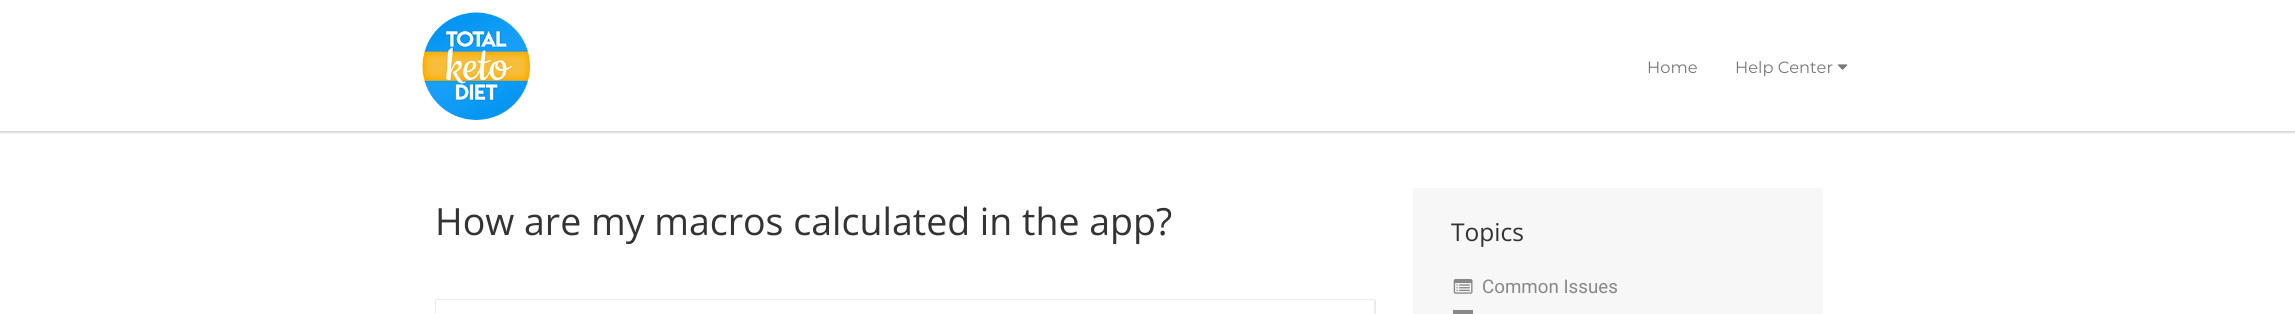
import math
import cairo

surface = cairo.ImageSurface(cairo.Format.RGB24, 2295, 314)
ctx = cairo.Context(surface)
options = cairo.FontOptions()
options.set_hint_metrics(cairo.HintMetrics.OFF)
options.set_hint_style(cairo.HintStyle.NONE)
ctx.set_font_options(options)
ctx.set_miter_limit(4)


def ink(r, g, b):
    ctx.set_source_rgb(r / 255, g / 255, b / 255)


def write(x, y, s, family, size, color, bold=False, italic=False):
    ctx.select_font_face(family, cairo.FontSlant.ITALIC if italic else cairo.FontSlant.NORMAL, cairo.FontWeight.BOLD if bold else cairo.FontWeight.NORMAL)
    ctx.set_font_size(size)
    ink(*color)
    ctx.move_to(x, y)
    ctx.show_text(s)


def block(x, y, w, h, *color):
    ink(*color)
    ctx.rectangle(x, y, w, h)
    ctx.fill()


def round_path(x, y, w, h, r):
    ctx.new_sub_path()
    for i, (u, v) in enumerate([(x + w - r, y + h - r), (x + r, y + h - r), (x + r, y + r), (x + w - r, y + r)]):
        ctx.arc(u, v, r, i * math.pi / 2, (i + 1) * math.pi / 2)
    ctx.close_path()


def blur_box(x, y, w, h, r, blur, alpha):
    ctx.push_group_with_content(cairo.Content.ALPHA)
    ctx.set_operator(cairo.Operator.SOURCE)
    for i in range(15, -16, -2):
        e = blur * i / 6
        if min(w, h) + 2 * e > 0:
            ctx.set_source_rgba(0, 0, 0, alpha * math.erfc((i - 1) / 8.5) / 2)
            round_path(x - e, y - e, w + 2 * e, h + 2 * e, max(0, min(r + e + blur * .6, min(w, h) / 2 + e)))
            ctx.fill()
    ctx.mask(ctx.pop_group())


def paste(path, x, y, w, h):
    ctx.save()
    ctx.set_source_surface(cairo.ImageSurface.create_from_png(path), x, y)
    ctx.rectangle(x, y, w, h)
    ctx.fill()
    ctx.restore()


s1 = dict(family="Montserrat", size=16.25, color=(119, 119, 119))
s2 = dict(family="Open Sans", size=37.5, color=(51, 51, 51))
s3 = dict(family="Open Sans", size=24.5, color=(51, 51, 51))
s4 = dict(family="Roboto", size=18.75, color=(136, 136, 136))

ink(255, 255, 255)
ctx.paint()
ctx.save()
ctx.rectangle(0, 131, 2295, 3)
ctx.clip()
ink(0, 0, 0)
blur_box(-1, -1, 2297, 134, 0, 1, 0.16)
ctx.restore()
paste("pic1.png", 422, 12, 108, 108)
write(1647, 73, "Home", **s1)
write(1735, 73, "Help Center", **s1)
paste("pic2.png", 1837, 64, 11, 6)
write(435, 235, "How are my macros calculated in the app?", **s2)
ctx.save()
ctx.rectangle(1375, 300, 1, 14)
ctx.clip()
ink(0, 0, 0)
blur_box(436, 300, 940, 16, 0, 0.5, 0.1)
ctx.restore()
ctx.rectangle(435.5, 299.5, 939, 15)
ink(235, 235, 235)
ctx.set_line_width(1)
ctx.stroke()
block(1413, 188, 410, 126, 247, 247, 247)
write(1451, 241, "Topics", **s3)
paste("pic3.png", 1453, 279, 20, 15)
write(1482, 293, "Common Issues", **s4)
block(1453, 310, 20, 4, 136, 136, 136)
surface.write_to_png("screenshot.png")
